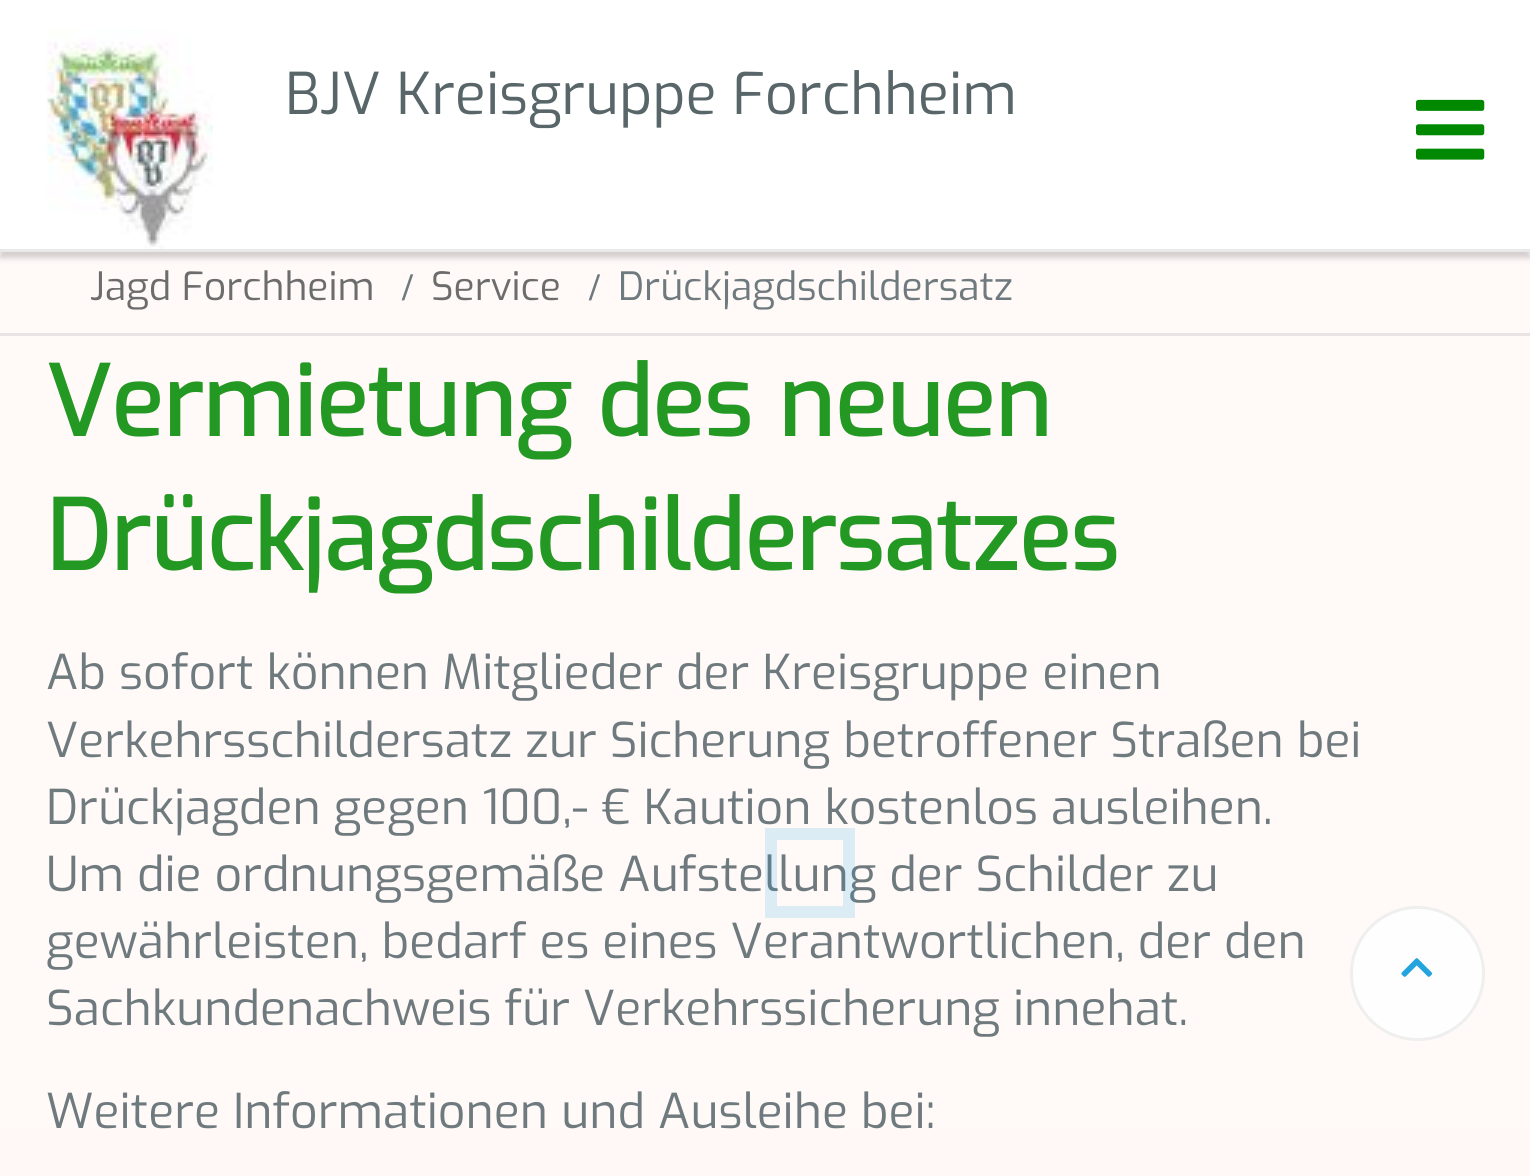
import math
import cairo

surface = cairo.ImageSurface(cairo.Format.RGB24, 1530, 1176)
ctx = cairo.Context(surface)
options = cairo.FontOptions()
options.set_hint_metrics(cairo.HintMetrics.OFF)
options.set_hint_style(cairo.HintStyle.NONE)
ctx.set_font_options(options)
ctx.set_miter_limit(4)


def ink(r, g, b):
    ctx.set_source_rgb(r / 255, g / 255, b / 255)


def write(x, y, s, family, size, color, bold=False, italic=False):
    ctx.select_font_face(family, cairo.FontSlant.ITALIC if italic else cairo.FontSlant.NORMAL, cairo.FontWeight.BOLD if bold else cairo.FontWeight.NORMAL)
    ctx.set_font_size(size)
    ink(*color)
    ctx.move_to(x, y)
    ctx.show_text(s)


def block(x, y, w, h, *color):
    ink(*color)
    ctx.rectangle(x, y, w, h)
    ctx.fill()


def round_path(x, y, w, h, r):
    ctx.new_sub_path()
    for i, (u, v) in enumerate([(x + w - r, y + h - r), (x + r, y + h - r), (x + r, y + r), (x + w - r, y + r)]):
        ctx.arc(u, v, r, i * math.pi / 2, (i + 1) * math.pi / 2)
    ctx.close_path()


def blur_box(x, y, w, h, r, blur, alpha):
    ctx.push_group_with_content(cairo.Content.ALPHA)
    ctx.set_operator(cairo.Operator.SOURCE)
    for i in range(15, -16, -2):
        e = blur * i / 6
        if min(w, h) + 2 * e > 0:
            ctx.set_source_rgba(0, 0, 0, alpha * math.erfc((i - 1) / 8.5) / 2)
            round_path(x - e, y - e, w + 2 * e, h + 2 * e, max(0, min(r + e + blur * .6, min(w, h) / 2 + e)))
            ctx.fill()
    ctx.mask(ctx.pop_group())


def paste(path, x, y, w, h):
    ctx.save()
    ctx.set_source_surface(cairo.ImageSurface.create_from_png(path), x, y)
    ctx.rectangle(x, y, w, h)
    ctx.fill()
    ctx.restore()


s1 = dict(family="Exo", size=57.6, color=(88, 101, 105))
s2 = dict(family="Exo", size=39, color=(85, 85, 85))
s3 = dict(family="Liberation Serif", size=39, color=(88, 101, 105), bold=True)
s4 = dict(family="Exo", size=39, color=(88, 101, 105))
s5 = dict(family="Exo", size=96, color=(0, 136, 0), bold=True)
s6 = dict(family="Exo", size=48, color=(88, 101, 105))

ink(255, 248, 247)
ctx.paint()
ink(0, 0, 0)
blur_box(0, 6, 1530, 252, 0, 3, 0.2)
block(0, 0, 1530, 249, 255, 255, 255)
block(0, 249, 1530, 3, 230, 230, 230)
paste("pic1.png", 46, 29, 167, 220)
write(285, 114, "BJV Kreisgruppe Forchheim", **s1)
paste("pic2.png", 1416, 99, 69, 61)
block(0, 333, 1530, 3, 230, 223, 222)
write(90, 300, "Jagd Forchheim", **s2)
write(402, 300, "/", **s3)
write(431, 300, "Service", **s2)
write(589, 300, "/", **s3)
write(618, 300, "Drückjagdschildersatz", **s4)
write(46, 436, "Vermietung des neuen", **s5)
write(46, 570, "Drückjagdschildersatzes", **s5)
write(46, 689, "Ab sofort können Mitglieder der Kreisgruppe einen", **s6)
write(46, 757, "Verkehrsschildersatz zur Sicherung betroffener Straßen bei", **s6)
write(46, 824, "Drückjagden gegen 100,- € Kaution kostenlos ausleihen.", **s6)
write(46, 891, "Um die ordnungsgemäße Aufstellung der Schilder zu", **s6)
write(46, 958, "gewährleisten, bedarf es eines Verantwortlichen, der den", **s6)
write(46, 1025, "Sachkundenachweis für Verkehrssicherung innehat.", **s6)
write(46, 1128, "Weitere Informationen und Ausleihe bei:", **s6)
ink(255, 254, 254)
ctx.new_path()
ctx.arc(1417.5, 973.5, 66, 0, 2 * math.pi)
ctx.fill_preserve()
ink(235, 237, 235)
ctx.set_line_width(3)
ctx.stroke()
paste("pic3.png", 1401, 958, 32, 19)
ctx.set_source_rgba(1, 1, 1, 0.14)
ctx.rectangle(0, 240, 1530, 889)
ctx.fill()
ctx.rectangle(771, 834, 78, 78)
ctx.set_source_rgba(0, 0.588, 0.851, 0.14)
ctx.set_line_width(12)
ctx.stroke()
surface.write_to_png("screenshot.png")
